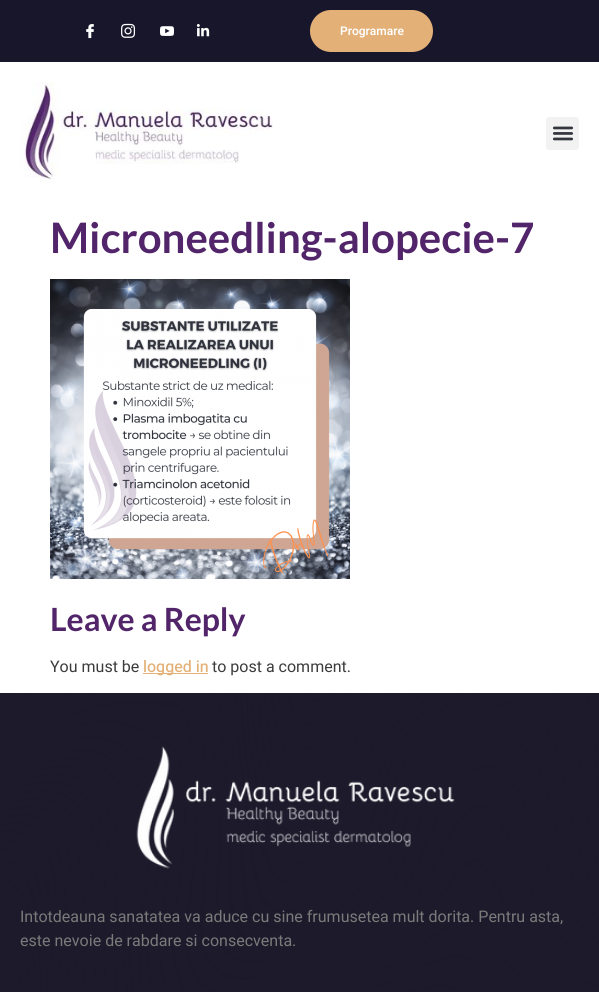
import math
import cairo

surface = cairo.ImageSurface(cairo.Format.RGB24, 599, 992)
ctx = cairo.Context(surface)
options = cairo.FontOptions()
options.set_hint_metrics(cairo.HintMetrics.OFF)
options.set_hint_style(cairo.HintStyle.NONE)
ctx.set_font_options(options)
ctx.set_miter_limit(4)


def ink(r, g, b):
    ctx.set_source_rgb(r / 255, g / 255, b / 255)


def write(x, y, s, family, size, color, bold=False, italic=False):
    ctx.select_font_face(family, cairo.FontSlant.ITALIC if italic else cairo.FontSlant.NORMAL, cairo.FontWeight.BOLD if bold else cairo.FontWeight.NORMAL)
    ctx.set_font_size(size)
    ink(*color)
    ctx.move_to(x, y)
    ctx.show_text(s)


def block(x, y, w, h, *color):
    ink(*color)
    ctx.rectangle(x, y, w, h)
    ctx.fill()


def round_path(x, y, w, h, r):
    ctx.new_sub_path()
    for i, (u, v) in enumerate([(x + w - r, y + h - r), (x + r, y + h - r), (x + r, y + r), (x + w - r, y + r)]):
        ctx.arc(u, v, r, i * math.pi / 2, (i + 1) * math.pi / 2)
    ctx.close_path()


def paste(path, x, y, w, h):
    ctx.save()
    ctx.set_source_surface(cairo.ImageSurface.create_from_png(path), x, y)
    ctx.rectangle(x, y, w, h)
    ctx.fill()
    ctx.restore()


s1 = dict(family="Heebo SemiBold", size=12, color=(255, 255, 255))
s2 = dict(family="Lato", size=42, color=(82, 37, 106), bold=True)
s3 = dict(family="Lato", size=32, color=(82, 37, 106), bold=True)
s4 = dict(family="Heebo", size=16, color=(60, 60, 60))
s5 = dict(family="Heebo Medium", size=16, color=(227, 176, 119))
s6 = dict(family="Heebo", size=16, color=(122, 122, 122))

ink(255, 255, 255)
ctx.paint()
block(0, 0, 599, 62, 24, 22, 43)
paste("pic1.png", 86, 24, 8, 15)
paste("pic2.png", 121, 23, 15, 15)
paste("pic3.png", 160, 26, 14, 10)
paste("pic4.png", 196, 24, 14, 13)
ink(227, 176, 119)
round_path(310, 10, 123, 42, 21)
ctx.fill()
write(340, 35, "Programare", **s1)
paste("pic5.png", 20, 82, 253, 101)
ink(242, 242, 242)
round_path(546, 117, 33, 33, 3)
ctx.fill()
paste("pic6.png", 552, 126, 22, 15)
write(50, 253, "Microneedling-alopecie-7", **s2)
paste("pic7.png", 50, 279, 300, 300)
write(50, 631, "Leave a Reply", **s3)
write(50, 672, "You must be", **s4)
block(143, 673, 65, 1, 227, 176, 119)
write(143, 672, "logged in", **s5)
write(212, 672, "to post a comment.", **s4)
block(0, 693, 599, 299, 19, 17, 34)
paste("pic8.png", 0, 693, 599, 299)
paste("pic9.png", 136, 746, 319, 123)
write(20, 922, "Intotdeauna sanatatea va aduce cu sine frumusetea mult dorita. Pentru asta,", **s6)
write(20, 946, "este nevoie de rabdare si consecventa.", **s6)
surface.write_to_png("screenshot.png")
